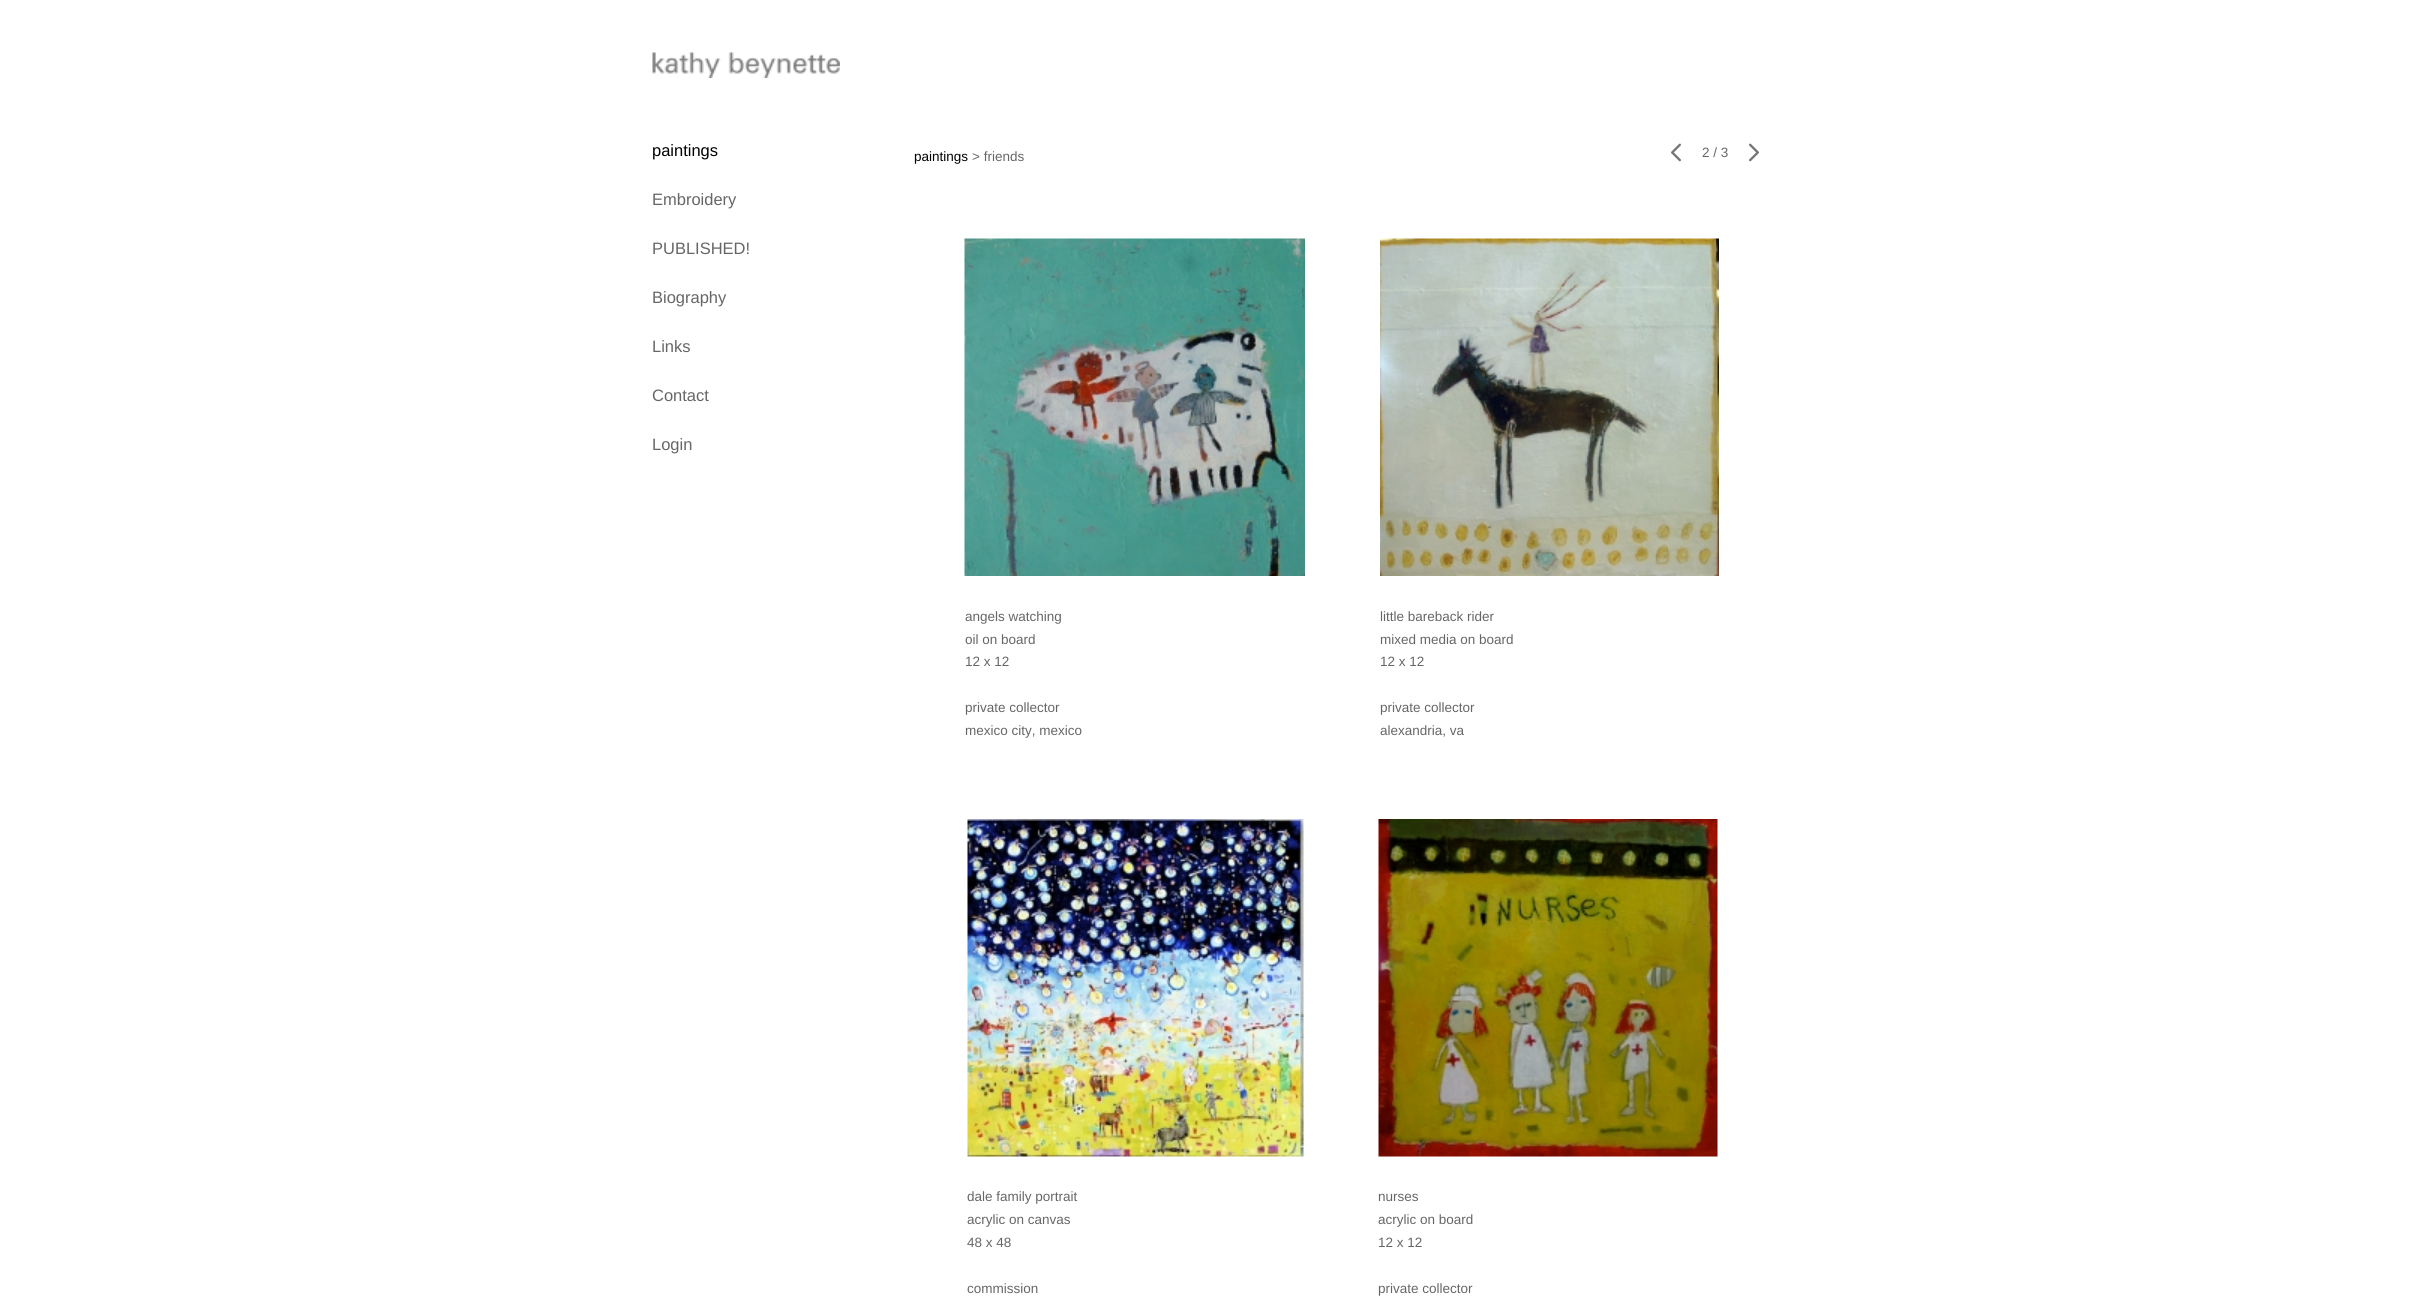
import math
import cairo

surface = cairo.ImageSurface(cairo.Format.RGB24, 2420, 1309)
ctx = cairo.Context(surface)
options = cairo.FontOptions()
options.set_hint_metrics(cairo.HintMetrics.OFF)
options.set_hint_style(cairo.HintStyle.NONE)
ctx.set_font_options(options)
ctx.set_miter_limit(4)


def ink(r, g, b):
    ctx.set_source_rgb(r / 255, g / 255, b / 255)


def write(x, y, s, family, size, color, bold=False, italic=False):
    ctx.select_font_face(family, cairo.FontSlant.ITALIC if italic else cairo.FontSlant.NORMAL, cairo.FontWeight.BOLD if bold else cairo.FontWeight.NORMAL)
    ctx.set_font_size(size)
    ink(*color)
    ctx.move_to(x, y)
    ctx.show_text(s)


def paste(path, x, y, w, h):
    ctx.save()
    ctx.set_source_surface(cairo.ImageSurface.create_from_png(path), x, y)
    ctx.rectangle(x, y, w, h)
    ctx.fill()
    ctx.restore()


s1 = dict(family="Liberation Sans", size=16.5, color=(0, 0, 0))
s2 = dict(family="Liberation Sans", size=16.5, color=(102, 102, 102))
s3 = dict(family="Liberation Sans", size=13.5, color=(0, 0, 0))
s4 = dict(family="Liberation Sans", size=13.5, color=(102, 102, 102))

ink(255, 255, 255)
ctx.paint()
paste("pic1.png", 652, 52, 188, 26)
write(652, 156, "paintings", **s1)
write(652, 205, "Embroidery", **s2)
write(652, 254, "PUBLISHED!", **s2)
write(652, 303, "Biography", **s2)
write(652, 352, "Links", **s2)
write(652, 401, "Contact", **s2)
write(652, 450, "Login", **s2)
write(914, 161, "paintings", **s3)
write(972, 161, "> friends", **s4)
paste("pic2.png", 1671, 143, 10, 19)
write(1702, 157, "2 / 3", **s4)
paste("pic3.png", 1749, 143, 10, 19)
paste("pic4.png", 964, 238, 341, 338)
write(965, 621, "angels watching", **s4)
write(965, 644, "oil on board", **s4)
write(965, 666, "12 x 12", **s4)
write(965, 712, "private collector", **s4)
write(965, 735, "mexico city, mexico", **s4)
paste("pic5.png", 1380, 238, 339, 338)
write(1380, 621, "little bareback rider", **s4)
write(1380, 644, "mixed media on board", **s4)
write(1380, 666, "12 x 12", **s4)
write(1380, 712, "private collector", **s4)
write(1380, 735, "alexandria, va", **s4)
paste("pic6.png", 967, 819, 337, 338)
write(967, 1201, "dale family portrait", **s4)
write(967, 1224, "acrylic on canvas", **s4)
write(967, 1247, "48 x 48", **s4)
write(967, 1293, "commission", **s4)
paste("pic7.png", 1378, 819, 340, 338)
write(1378, 1201, "nurses", **s4)
write(1378, 1224, "acrylic on board", **s4)
write(1378, 1247, "12 x 12", **s4)
write(1378, 1293, "private collector", **s4)
surface.write_to_png("screenshot.png")
